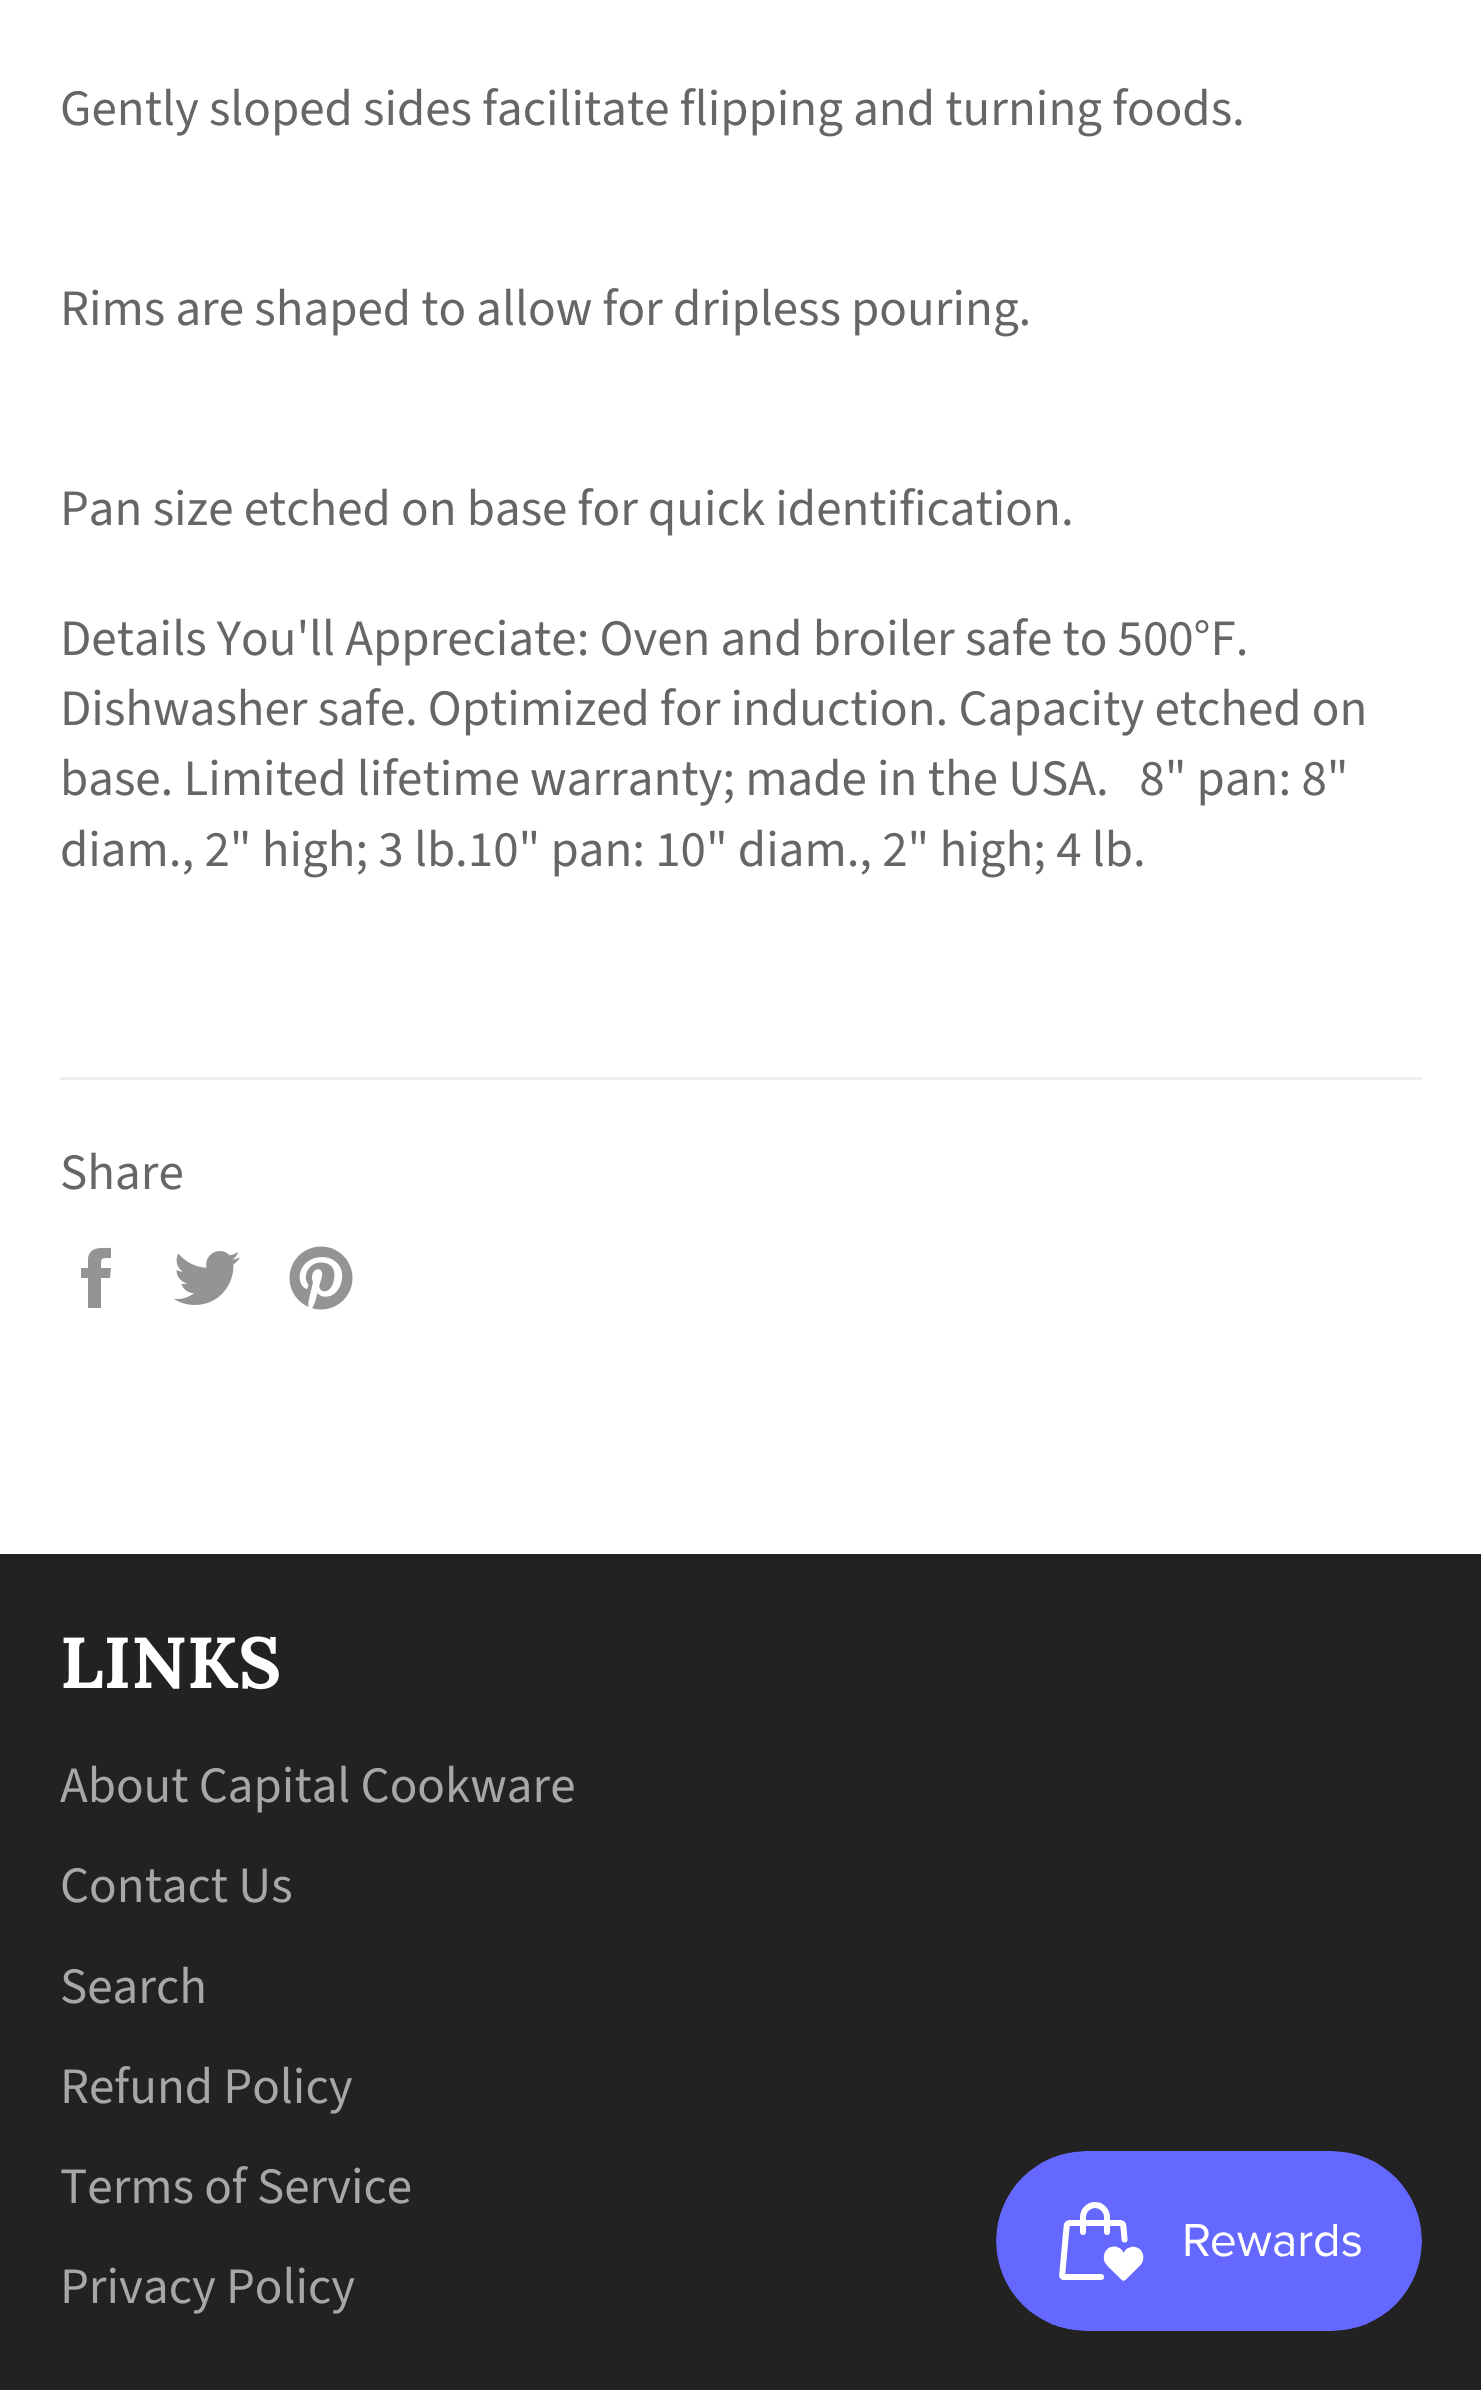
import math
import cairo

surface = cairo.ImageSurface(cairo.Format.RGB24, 1481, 2390)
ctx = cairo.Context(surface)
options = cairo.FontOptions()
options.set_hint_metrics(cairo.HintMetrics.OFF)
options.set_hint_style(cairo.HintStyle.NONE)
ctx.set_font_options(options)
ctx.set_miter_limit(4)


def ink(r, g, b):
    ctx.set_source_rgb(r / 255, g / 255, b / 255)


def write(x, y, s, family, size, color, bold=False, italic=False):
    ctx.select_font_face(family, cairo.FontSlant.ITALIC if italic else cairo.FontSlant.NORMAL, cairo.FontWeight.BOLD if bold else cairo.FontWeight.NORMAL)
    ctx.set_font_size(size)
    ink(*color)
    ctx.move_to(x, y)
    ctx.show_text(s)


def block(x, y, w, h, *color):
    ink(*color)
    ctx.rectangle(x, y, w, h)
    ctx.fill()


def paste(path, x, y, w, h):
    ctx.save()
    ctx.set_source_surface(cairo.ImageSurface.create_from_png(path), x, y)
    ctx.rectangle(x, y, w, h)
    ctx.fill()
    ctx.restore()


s1 = dict(family="Source Sans Pro", size=51, color=(102, 102, 102))
s2 = dict(family="Lora", size=72, color=(255, 255, 255), bold=True)
s3 = dict(family="Source Sans Pro", size=51, color=(167, 167, 167))

ink(255, 255, 255)
ctx.paint()
write(60, 125, "Gently sloped sides facilitate flipping and turning foods.", **s1)
write(60, 325, "Rims are shaped to allow for dripless pouring.", **s1)
write(60, 525, "Pan size etched on base for quick identification.", **s1)
write(60, 655, "Details You'll Appreciate: Oven and broiler safe to 500°F.", **s1)
write(60, 725, "Dishwasher safe. Optimized for induction. Capacity etched on", **s1)
write(60, 795, "base. Limited lifetime warranty; made in the USA.   8\" pan: 8\"", **s1)
write(60, 866, "diam., 2\" high; 3 lb.10\" pan: 10\" diam., 2\" high; 4 lb.", **s1)
block(60, 1077, 1362, 3, 240, 240, 240)
write(60, 1189, "Share", **s1)
ink(148, 148, 148)
ctx.new_path()
ctx.move_to(101, 1268)
ctx.curve_to(101, 1258, 100, 1258, 111, 1258)
ctx.line_to(111, 1248)
ctx.curve_to(102, 1248, 90, 1246, 88, 1258)
ctx.line_to(88, 1268)
ctx.line_to(81, 1268)
ctx.line_to(81, 1278)
ctx.line_to(88, 1278)
ctx.line_to(88, 1308)
ctx.line_to(101, 1308)
ctx.line_to(101, 1278)
ctx.line_to(110, 1278)
ctx.line_to(111, 1268)
ctx.close_path()
ctx.fill()
paste("pic1.png", 174, 1251, 66, 54)
paste("pic2.png", 289, 1246, 64, 64)
block(0, 1554, 1481, 836, 34, 34, 34)
write(60, 1688, "LINKS", **s2)
write(60, 1802, "About Capital Cookware", **s3)
write(60, 1902, "Contact Us", **s3)
write(60, 2003, "Search", **s3)
write(60, 2103, "Refund Policy", **s3)
write(60, 2203, "Terms of Service", **s3)
write(60, 2303, "Privacy Policy", **s3)
paste("pic3.png", 996, 2151, 426, 180)
surface.write_to_png("screenshot.png")
